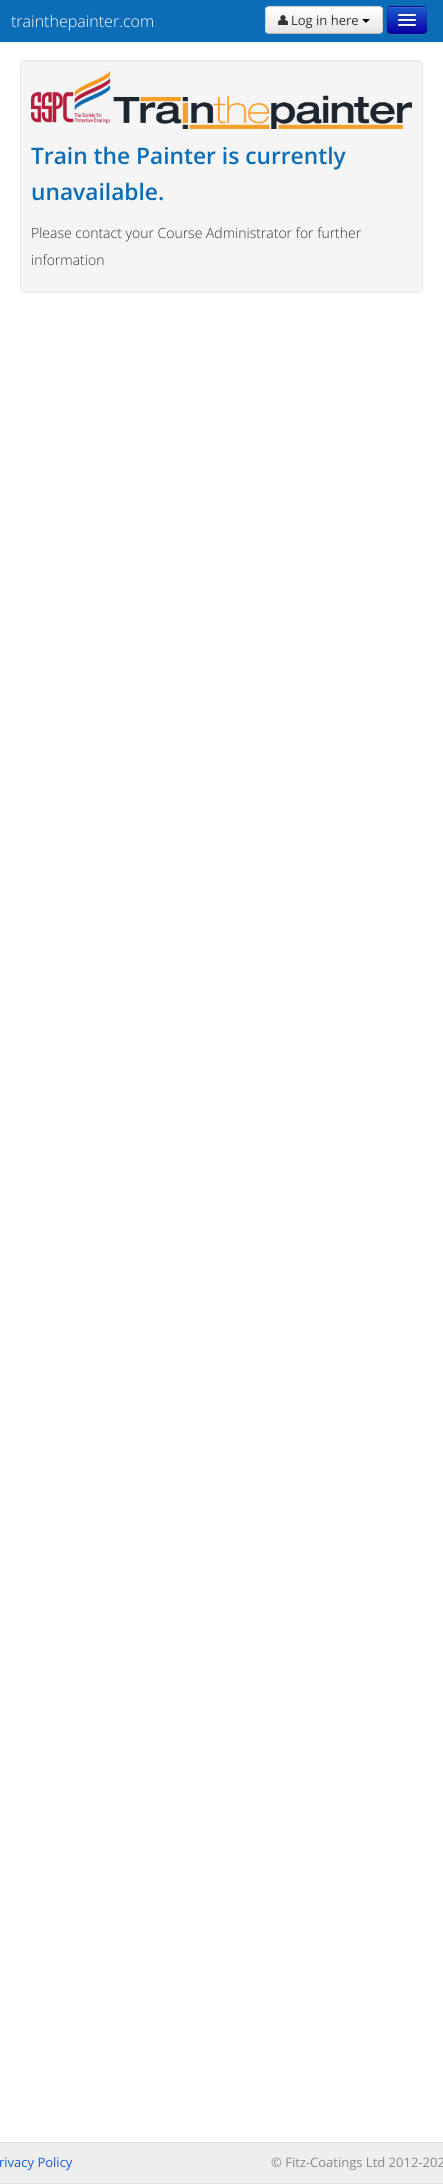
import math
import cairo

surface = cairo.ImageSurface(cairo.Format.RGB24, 443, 2184)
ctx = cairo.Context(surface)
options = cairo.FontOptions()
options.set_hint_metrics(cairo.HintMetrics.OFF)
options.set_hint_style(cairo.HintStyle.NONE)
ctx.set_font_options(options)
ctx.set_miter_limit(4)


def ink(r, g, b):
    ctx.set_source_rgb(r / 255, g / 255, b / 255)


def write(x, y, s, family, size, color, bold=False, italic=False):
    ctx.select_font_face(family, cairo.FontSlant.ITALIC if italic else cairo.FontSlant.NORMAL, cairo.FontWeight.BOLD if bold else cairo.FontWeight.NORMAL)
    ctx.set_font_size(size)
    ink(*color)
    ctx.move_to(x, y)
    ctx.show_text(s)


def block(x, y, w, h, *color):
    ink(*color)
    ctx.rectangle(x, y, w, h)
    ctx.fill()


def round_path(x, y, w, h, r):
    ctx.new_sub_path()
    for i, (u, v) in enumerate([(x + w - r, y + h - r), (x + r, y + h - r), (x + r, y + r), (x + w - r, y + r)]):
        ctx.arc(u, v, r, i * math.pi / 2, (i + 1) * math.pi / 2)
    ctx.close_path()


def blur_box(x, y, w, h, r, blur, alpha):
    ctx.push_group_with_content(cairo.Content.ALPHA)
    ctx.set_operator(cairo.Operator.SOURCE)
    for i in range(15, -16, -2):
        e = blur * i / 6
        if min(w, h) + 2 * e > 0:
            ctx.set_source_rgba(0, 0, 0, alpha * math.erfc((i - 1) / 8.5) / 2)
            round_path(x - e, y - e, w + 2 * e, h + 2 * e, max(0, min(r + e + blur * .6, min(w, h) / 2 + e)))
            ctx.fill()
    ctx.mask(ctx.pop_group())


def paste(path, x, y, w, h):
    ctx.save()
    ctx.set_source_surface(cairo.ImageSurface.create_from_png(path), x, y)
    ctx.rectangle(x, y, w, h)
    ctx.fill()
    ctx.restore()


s1 = dict(family="Open Sans Light", size=16, color=(255, 255, 255))
s2 = dict(family="Open Sans", size=13, color=(51, 51, 51))
s3 = dict(family="Open Sans SemiBold", size=22.75, color=(12, 109, 182))
s4 = dict(family="Open Sans Light", size=14, color=(51, 51, 51))
s5 = dict(family="Open Sans", size=13, color=(25, 93, 202))
s6 = dict(family="Open Sans", size=13, color=(136, 136, 136))

ink(255, 255, 255)
ctx.paint()
ink(0, 0, 0)
blur_box(0, 1, 443, 42, 0, 2, 0.07)
block(0, 0, 443, 42, 12, 109, 182)
write(11, 27, "trainthepainter.com", **s1)
ink(245, 245, 245)
round_path(265, 6, 118, 28, 4)
ctx.fill()
ctx.save()
round_path(265, 6, 118, 28, 4)
ctx.clip()
gradient = cairo.LinearGradient(324, 7, 324, 33)
gradient.add_color_stop_rgba(0, 1, 1, 1, 1)
gradient.add_color_stop_rgba(1, 0.902, 0.902, 0.902, 1)
ctx.set_source(gradient)
ctx.rectangle(265, 7, 118, 26)
ctx.fill()
ctx.restore()
ctx.set_source_rgba(1, 1, 1, 0.2)
ctx.new_path()
ctx.move_to(269, 8)
ctx.line_to(379, 8)
ctx.curve_to(381, 8, 382, 9, 382, 11)
ctx.curve_to(382, 9, 381, 7, 379, 7)
ctx.line_to(287, 7)
ctx.curve_to(286, 7, 266, 2, 266, 11)
ctx.curve_to(266, 9, 267, 8, 269, 8)
ctx.close_path()
ctx.fill()
ctx.new_path()
ctx.move_to(381.5, 32.5)
ctx.line_to(379, 33.5)
ctx.line_to(268.5, 33.5)
ctx.line_to(266.5, 32.5)
ctx.set_source_rgba(0, 0, 0, 0.25)
ctx.set_line_width(1)
ctx.stroke()
ctx.new_path()
ctx.move_to(266.5, 32.5)
ctx.curve_to(264.5, 30, 265.5, 22.5, 265.5, 20)
ctx.line_to(265.5, 13.5)
ctx.curve_to(265.5, 10.5, 265, 6.5, 269, 6.5)
ctx.line_to(379, 6.5)
ctx.curve_to(383, 6.5, 382.5, 10.5, 382.5, 13.5)
ctx.line_to(382.5, 20)
ctx.curve_to(382.5, 22.5, 383.5, 30, 381.5, 32.5)
ctx.set_source_rgba(0, 0, 0, 0.15)
ctx.stroke()
paste("pic1.png", 278, 15, 10, 10)
write(291, 25, "Log in here", **s2)
ink(0, 0, 0)
ctx.new_path()
ctx.move_to(362, 19)
ctx.line_to(370, 19)
ctx.line_to(366, 23)
ctx.close_path()
ctx.fill()
ink(30, 120, 187)
ctx.new_path()
ctx.move_to(387, 30)
ctx.curve_to(387, 36, 392, 35, 396, 35)
ctx.line_to(418, 35)
ctx.curve_to(422, 35, 427, 36, 427, 30)
ctx.curve_to(427, 32, 425, 34, 423, 34)
ctx.line_to(391, 34)
ctx.curve_to(389, 34, 387, 32, 387, 30)
ctx.close_path()
ctx.fill()
ink(12, 0, 170)
round_path(387, 6, 40, 28, 4)
ctx.fill()
ctx.save()
round_path(387, 6, 40, 28, 4)
ctx.clip()
gradient = cairo.LinearGradient(407, 7, 407, 33)
gradient.add_color_stop_rgba(0, 0.098, 0.365, 0.792, 1)
gradient.add_color_stop_rgba(1, 0.047, 0, 0.667, 1)
ctx.set_source(gradient)
ctx.rectangle(387, 7, 40, 26)
ctx.fill()
ctx.restore()
ink(48, 107, 206)
ctx.new_path()
ctx.move_to(391, 8)
ctx.line_to(423, 8)
ctx.curve_to(425, 8, 426, 9, 426, 11)
ctx.curve_to(426, 6, 422, 7, 417.5, 7)
ctx.line_to(396.5, 7)
ctx.curve_to(392, 7, 388, 6, 388, 11)
ctx.curve_to(388, 9, 389, 8, 391, 8)
ctx.close_path()
ctx.fill()
ctx.new_path()
ctx.move_to(425.5, 32.5)
ctx.curve_to(425, 33, 424, 33.5, 423, 33.5)
ctx.line_to(391, 33.5)
ctx.curve_to(390, 33.5, 389, 33, 388.5, 32.5)
ctx.set_source_rgba(0, 0, 0, 0.25)
ctx.stroke()
ctx.new_path()
ctx.move_to(388.5, 32.5)
ctx.curve_to(388, 32, 387.5, 31, 387.5, 30)
ctx.line_to(387.5, 10)
ctx.curve_to(387.5, 9, 388, 8, 388.5, 7.5)
ctx.curve_to(389, 7, 390, 6.5, 391, 6.5)
ctx.line_to(423, 6.5)
ctx.curve_to(424, 6.5, 425, 7, 425.5, 7.5)
ctx.curve_to(426, 8, 426.5, 9, 426.5, 10)
ctx.line_to(426.5, 30)
ctx.curve_to(426.5, 31, 426, 32, 425.5, 32.5)
ctx.set_source_rgba(0, 0, 0, 0.1)
ctx.stroke()
ink(15, 44, 143)
ctx.new_path()
ctx.move_to(398, 15.5)
ctx.curve_to(397, 17.5, 401.5, 17, 401.5, 17)
ctx.line_to(412.5, 17)
ctx.curve_to(412.5, 17, 417, 17.5, 416, 15.5)
ctx.curve_to(415, 16.5, 408.5, 16, 407, 16)
ctx.curve_to(405.5, 16, 399, 16.5, 398, 15.5)
ctx.close_path()
ctx.fill()
ink(245, 245, 245)
round_path(398, 14, 18, 2, 1)
ctx.fill()
ink(14, 31, 138)
ctx.new_path()
ctx.move_to(398, 20.5)
ctx.curve_to(397, 22.5, 401.5, 22, 401.5, 22)
ctx.line_to(412.5, 22)
ctx.curve_to(412.5, 22, 417, 22.5, 416, 20.5)
ctx.curve_to(415, 21.5, 408.5, 21, 407, 21)
ctx.curve_to(405.5, 21, 399, 21.5, 398, 20.5)
ctx.close_path()
ctx.fill()
ink(245, 245, 245)
round_path(398, 19, 18, 2, 1)
ctx.fill()
ink(11, 17, 134)
ctx.new_path()
ctx.move_to(398, 25.5)
ctx.curve_to(397, 27.5, 401.5, 27, 401.5, 27)
ctx.line_to(412.5, 27)
ctx.curve_to(412.5, 27, 417, 27.5, 416, 25.5)
ctx.curve_to(415, 26.5, 408.5, 26, 407, 26)
ctx.curve_to(405.5, 26, 399, 26.5, 398, 25.5)
ctx.close_path()
ctx.fill()
ink(245, 245, 245)
round_path(398, 24, 18, 2, 1)
ctx.fill()
round_path(20, 60, 403, 233, 6)
ctx.fill()
ink(233, 233, 233)
ctx.new_path()
ctx.move_to(26, 62)
ctx.line_to(417, 62)
ctx.curve_to(420, 62, 422, 64, 422, 67)
ctx.line_to(422, 66)
ctx.curve_to(422, 63, 420, 61, 417, 61)
ctx.line_to(26, 61)
ctx.curve_to(23, 61, 21, 63, 21, 66)
ctx.line_to(21, 67)
ctx.curve_to(21, 64, 23, 62, 26, 62)
ctx.close_path()
ctx.fill()
ctx.rectangle(20.5, 60.5, 402, 232)
ctx.set_source_rgba(0, 0, 0, 0.05)
ctx.stroke()
paste("pic2.png", 31, 71, 381, 58)
write(31, 164, "Train the Painter is currently", **s3)
write(31, 200, "unavailable.", **s3)
write(31, 238, "Please contact your Course Administrator for further", **s4)
write(31, 265, "information", **s4)
ink(238, 238, 238)
ctx.rectangle(-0.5, 2142.5, 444, 41)
ctx.fill_preserve()
ink(221, 221, 221)
ctx.stroke()
write(-1, 2167, "rivacy Policy", **s5)
write(271, 2167, "© Fitz-Coatings Ltd 2012-202", **s6)
surface.write_to_png("screenshot.png")
